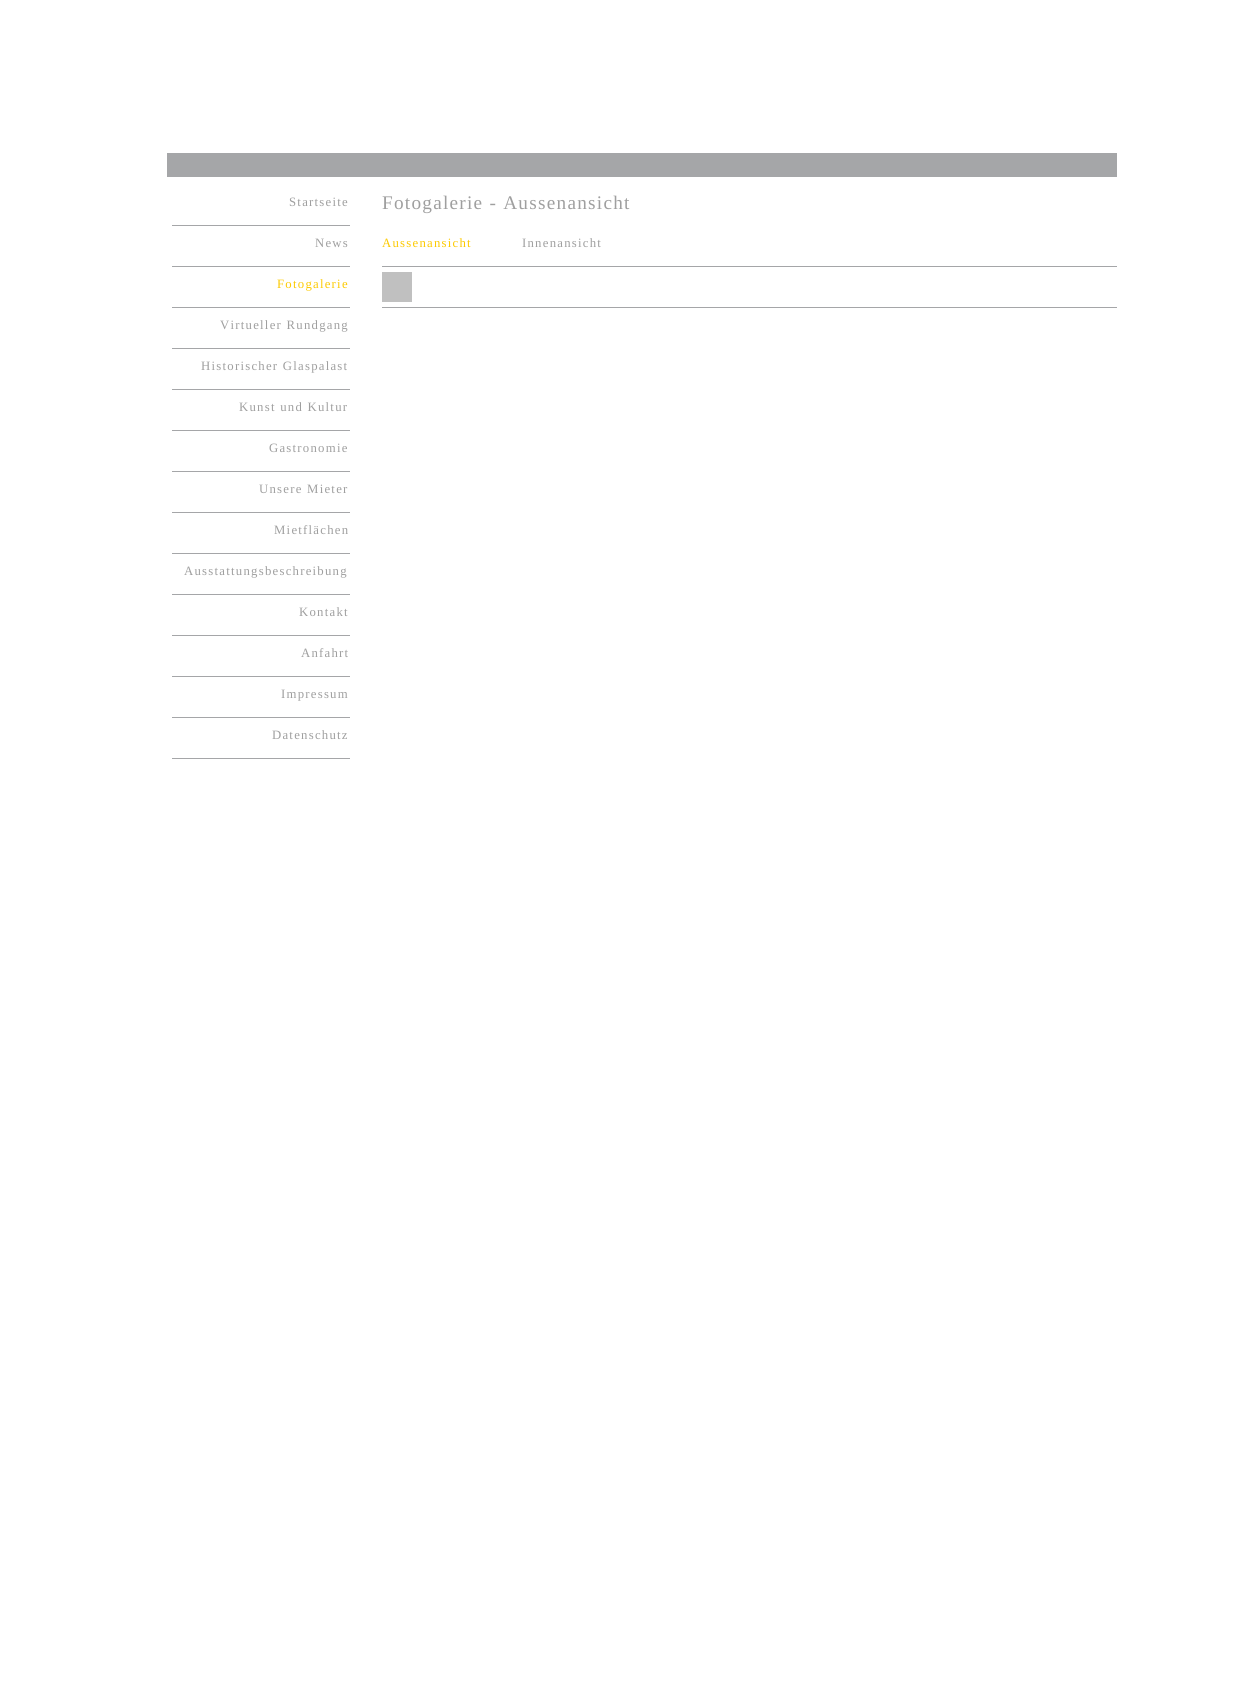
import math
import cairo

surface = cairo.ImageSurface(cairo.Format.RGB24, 1233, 1699)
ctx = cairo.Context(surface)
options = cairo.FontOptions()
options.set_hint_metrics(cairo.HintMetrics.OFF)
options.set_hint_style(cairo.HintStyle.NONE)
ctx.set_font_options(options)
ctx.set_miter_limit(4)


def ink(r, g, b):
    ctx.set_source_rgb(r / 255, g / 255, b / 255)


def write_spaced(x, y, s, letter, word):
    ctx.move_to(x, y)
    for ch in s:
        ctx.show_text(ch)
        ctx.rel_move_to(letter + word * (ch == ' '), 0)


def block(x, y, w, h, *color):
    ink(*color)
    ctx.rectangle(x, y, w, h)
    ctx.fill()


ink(255, 255, 255)
ctx.paint()
block(167, 153, 950, 24, 165, 166, 168)
block(172, 225, 178, 1, 165, 166, 168)
ctx.select_font_face("Liberation Serif")
ctx.set_font_size(12.75)
ink(159, 159, 159)
write_spaced(289, 206, "Startseite", 1.25, 0)
block(172, 266, 178, 1, 165, 166, 168)
ink(159, 159, 159)
write_spaced(315, 247, "News", 1.25, 0)
block(172, 307, 178, 1, 165, 166, 168)
ink(252, 202, 2)
write_spaced(277, 288, "Fotogalerie", 1.25, 0)
block(172, 348, 178, 1, 165, 166, 168)
ink(159, 159, 159)
write_spaced(220, 329, "Virtueller Rundgang", 1.25, 0)
block(172, 389, 178, 1, 165, 166, 168)
ink(159, 159, 159)
write_spaced(201, 370, "Historischer Glaspalast", 1.25, 0)
block(172, 430, 178, 1, 165, 166, 168)
ink(159, 159, 159)
write_spaced(239, 411, "Kunst und Kultur", 1.25, 0)
block(172, 471, 178, 1, 165, 166, 168)
ink(159, 159, 159)
write_spaced(269, 452, "Gastronomie", 1.25, 0)
block(172, 512, 178, 1, 165, 166, 168)
ink(159, 159, 159)
write_spaced(259, 493, "Unsere Mieter", 1.25, 0)
block(172, 553, 178, 1, 165, 166, 168)
ink(159, 159, 159)
write_spaced(274, 534, "Mietflächen", 1.25, 0)
block(172, 594, 178, 1, 165, 166, 168)
ink(159, 159, 159)
write_spaced(184, 575, "Ausstattungsbeschreibung", 1.25, 0)
block(172, 635, 178, 1, 165, 166, 168)
ink(159, 159, 159)
write_spaced(299, 616, "Kontakt", 1.25, 0)
block(172, 676, 178, 1, 165, 166, 168)
ink(159, 159, 159)
write_spaced(301, 657, "Anfahrt", 1.25, 0)
block(172, 717, 178, 1, 165, 166, 168)
ink(159, 159, 159)
write_spaced(281, 698, "Impressum", 1.25, 0)
block(172, 758, 178, 1, 165, 166, 168)
ink(159, 159, 159)
write_spaced(272, 739, "Datenschutz", 1.25, 0)
ctx.set_font_size(19.25)
write_spaced(382, 209, "Fotogalerie - Aussenansicht", 1.25, 0)
block(382, 266, 735, 1, 165, 166, 168)
ctx.set_font_size(12.75)
ink(252, 202, 2)
write_spaced(382, 247, "Aussenansicht", 1.25, 0)
ink(159, 159, 159)
write_spaced(522, 247, "Innenansicht", 1.25, 0)
block(382, 272, 30, 30, 192, 192, 192)
block(382, 307, 735, 1, 165, 166, 168)
surface.write_to_png("screenshot.png")
